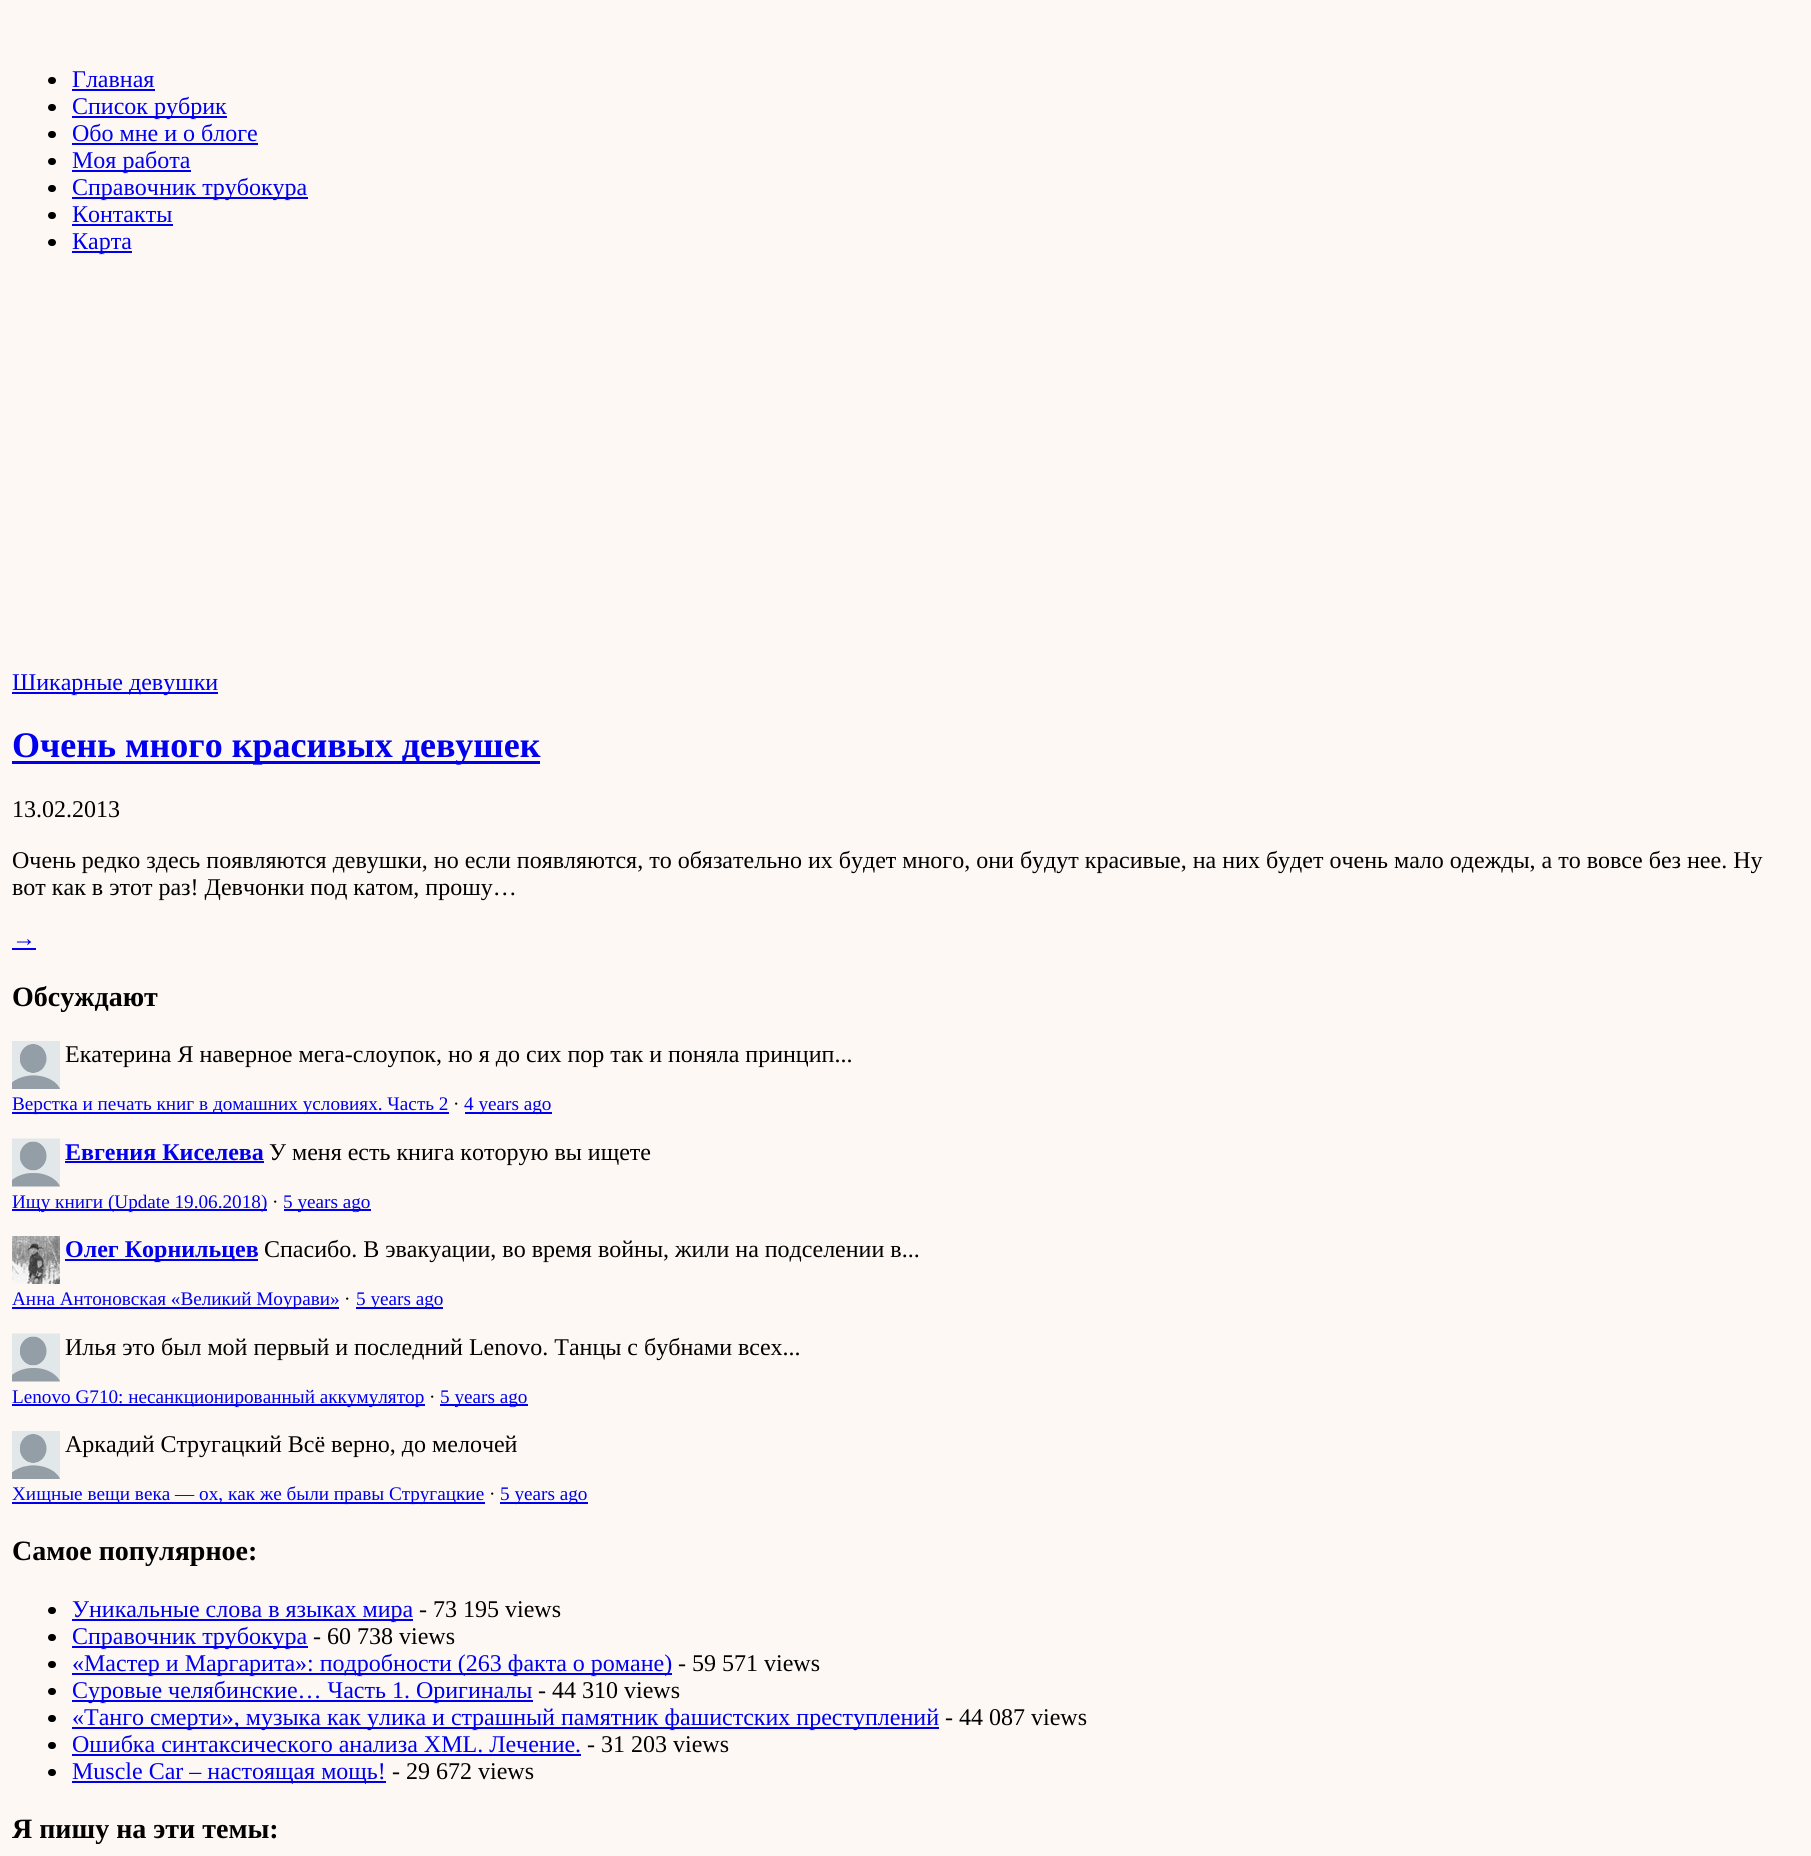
import math
import cairo

surface = cairo.ImageSurface(cairo.Format.RGB24, 1811, 1856)
ctx = cairo.Context(surface)
options = cairo.FontOptions()
options.set_hint_metrics(cairo.HintMetrics.OFF)
options.set_hint_style(cairo.HintStyle.NONE)
ctx.set_font_options(options)
ctx.set_miter_limit(4)


def ink(r, g, b):
    ctx.set_source_rgb(r / 255, g / 255, b / 255)


def write(x, y, s, family, size, color, bold=False, italic=False):
    ctx.select_font_face(family, cairo.FontSlant.ITALIC if italic else cairo.FontSlant.NORMAL, cairo.FontWeight.BOLD if bold else cairo.FontWeight.NORMAL)
    ctx.set_font_size(size)
    ink(*color)
    ctx.move_to(x, y)
    ctx.show_text(s)


def block(x, y, w, h, *color):
    ink(*color)
    ctx.rectangle(x, y, w, h)
    ctx.fill()


def round_path(x, y, w, h, r):
    ctx.new_sub_path()
    for i, (u, v) in enumerate([(x + w - r, y + h - r), (x + r, y + h - r), (x + r, y + r), (x + w - r, y + r)]):
        ctx.arc(u, v, r, i * math.pi / 2, (i + 1) * math.pi / 2)
    ctx.close_path()


def paste(path, x, y, w, h):
    ctx.save()
    ctx.set_source_surface(cairo.ImageSurface.create_from_png(path), x, y)
    ctx.rectangle(x, y, w, h)
    ctx.fill()
    ctx.restore()


s1 = dict(family="Liberation Serif", size=24, color=(0, 0, 238))
s2 = dict(family="Liberation Serif", size=36, color=(0, 0, 238), bold=True)
s3 = dict(family="Liberation Serif", size=24, color=(0, 0, 0))
s4 = dict(family="Liberation Serif", size=28, color=(0, 0, 0), bold=True)
s5 = dict(family="Liberation Serif", size=19.2, color=(0, 0, 238))
s6 = dict(family="Liberation Serif", size=19.2, color=(0, 0, 0))
s7 = dict(family="Liberation Serif", size=24, color=(0, 0, 238), bold=True)

ink(253, 248, 243)
ctx.paint()
ink(0, 0, 0)
round_path(48, 77, 8, 7, 3.5)
ctx.fill()
write(72, 87, "Главная", **s1)
block(72, 89, 83, 2, 0, 0, 238)
ink(0, 0, 0)
round_path(48, 104, 8, 7, 3.5)
ctx.fill()
block(72, 116, 155, 2, 0, 0, 238)
write(72, 114, "Список рубрик", **s1)
ink(0, 0, 0)
round_path(48, 131, 8, 7, 3.5)
ctx.fill()
write(72, 141, "Обо мне и о блоге", **s1)
block(72, 143, 186, 2, 0, 0, 238)
ink(0, 0, 0)
round_path(48, 158, 8, 7, 3.5)
ctx.fill()
block(72, 170, 119, 2, 0, 0, 238)
write(72, 168, "Моя работа", **s1)
ink(0, 0, 0)
round_path(48, 185, 8, 7, 3.5)
ctx.fill()
block(72, 197, 236, 2, 0, 0, 238)
write(72, 195, "Справочник трубокура", **s1)
ink(0, 0, 0)
round_path(48, 212, 8, 7, 3.5)
ctx.fill()
write(72, 222, "Контакты", **s1)
block(72, 224, 101, 2, 0, 0, 238)
ink(0, 0, 0)
round_path(48, 239, 8, 7, 3.5)
ctx.fill()
block(72, 251, 60, 2, 0, 0, 238)
write(72, 249, "Карта", **s1)
block(12, 692, 206, 2, 0, 0, 238)
write(12, 690, "Шикарные девушки", **s1)
block(12, 761, 528, 3, 0, 0, 238)
write(12, 757, "Очень много красивых девушек", **s2)
write(12, 817, "13.02.2013", **s3)
write(12, 868, "Очень редко здесь появляются девушки, но если появляются, то обязательно их будет много, они будут красивые, на них будет очень мало одежды, а то вовсе без нее. Ну", **s3)
write(12, 895, "вот как в этот раз! Девчонки под катом, прошу…", **s3)
write(12, 946, "→", **s1)
block(12, 948, 24, 2, 0, 0, 238)
write(12, 1006, "Обсуждают", **s4)
paste("pic1.png", 12, 1041, 48, 48)
write(65, 1062, "Екатерина Я наверное мега-слоупок, но я до сих пор так и поняла принцип...", **s3)
block(12, 1112, 437, 2, 0, 0, 238)
write(12, 1110, "Верстка и печать книг в домашних условиях. Часть 2", **s5)
write(453, 1110, "·", **s6)
block(465, 1112, 87, 2, 0, 0, 238)
write(464, 1110, "4 years ago", **s5)
paste("pic2.png", 12, 1138, 48, 49)
write(65, 1160, "Евгения Киселева", **s7)
block(65, 1161, 199, 2, 0, 0, 238)
write(269, 1160, "У меня есть книга которую вы ищете", **s3)
block(12, 1209, 255, 2, 0, 0, 238)
write(12, 1208, "Ищу книги (Update 19.06.2018)", **s5)
write(272, 1208, "·", **s6)
block(284, 1209, 87, 2, 0, 0, 238)
write(283, 1208, "5 years ago", **s5)
paste("pic3.png", 12, 1236, 48, 48)
block(65, 1259, 193, 2, 0, 0, 238)
write(65, 1257, "Олег Корнильцев", **s7)
write(264, 1257, "Спасибо. В эвакуации, во время войны, жили на подселении в...", **s3)
block(12, 1307, 327, 2, 0, 0, 238)
write(12, 1305, "Анна Антоновская «Великий Моурави»", **s5)
write(344, 1305, "·", **s6)
block(356, 1307, 87, 2, 0, 0, 238)
write(356, 1305, "5 years ago", **s5)
paste("pic2.png", 12, 1333, 48, 49)
write(65, 1355, "Илья это был мой первый и последний Lenovo. Танцы с бубнами всех...", **s3)
block(12, 1404, 413, 2, 0, 0, 238)
write(12, 1403, "Lenovo G710: несанкционированный аккумулятор", **s5)
write(429, 1403, "·", **s6)
block(440, 1404, 88, 2, 0, 0, 238)
write(440, 1403, "5 years ago", **s5)
paste("pic4.png", 12, 1431, 48, 48)
write(65, 1452, "Аркадий Стругацкий Всё верно, до мелочей", **s3)
block(12, 1502, 473, 2, 0, 0, 238)
write(12, 1500, "Хищные вещи века — ох, как же были правы Стругацкие", **s5)
write(489, 1500, "·", **s6)
block(500, 1502, 88, 2, 0, 0, 238)
write(500, 1500, "5 years ago", **s5)
write(12, 1560, "Самое популярное:", **s4)
round_path(48, 1607, 8, 7, 3.5)
ctx.fill()
block(72, 1619, 341, 2, 0, 0, 238)
write(72, 1617, "Уникальные слова в языках мира", **s1)
write(419, 1617, "- 73 195 views", **s3)
round_path(48, 1634, 8, 7, 3.5)
ctx.fill()
block(72, 1646, 236, 2, 0, 0, 238)
write(72, 1644, "Справочник трубокура", **s1)
write(313, 1644, "- 60 738 views", **s3)
round_path(48, 1661, 8, 7, 3.5)
ctx.fill()
block(72, 1673, 600, 2, 0, 0, 238)
write(72, 1671, "«Мастер и Маргарита»: подробности (263 факта о романе)", **s1)
write(678, 1671, "- 59 571 views", **s3)
round_path(48, 1688, 8, 7, 3.5)
ctx.fill()
block(72, 1700, 461, 2, 0, 0, 238)
write(72, 1698, "Суровые челябинские… Часть 1. Оригиналы", **s1)
write(538, 1698, "- 44 310 views", **s3)
round_path(48, 1715, 8, 7, 3.5)
ctx.fill()
block(72, 1727, 867, 2, 0, 0, 238)
write(72, 1725, "«Танго смерти», музыка как улика и страшный памятник фашистских преступлений", **s1)
write(945, 1725, "- 44 087 views", **s3)
round_path(48, 1742, 8, 7, 3.5)
ctx.fill()
write(72, 1752, "Ошибка синтаксического анализа XML. Лечение.", **s1)
block(72, 1754, 509, 2, 0, 0, 238)
write(587, 1752, "- 31 203 views", **s3)
round_path(48, 1769, 8, 7, 3.5)
ctx.fill()
block(72, 1781, 314, 2, 0, 0, 238)
write(72, 1779, "Muscle Car – настоящая мощь!", **s1)
write(392, 1779, "- 29 672 views", **s3)
write(12, 1838, "Я пишу на эти темы:", **s4)
surface.write_to_png("screenshot.png")
